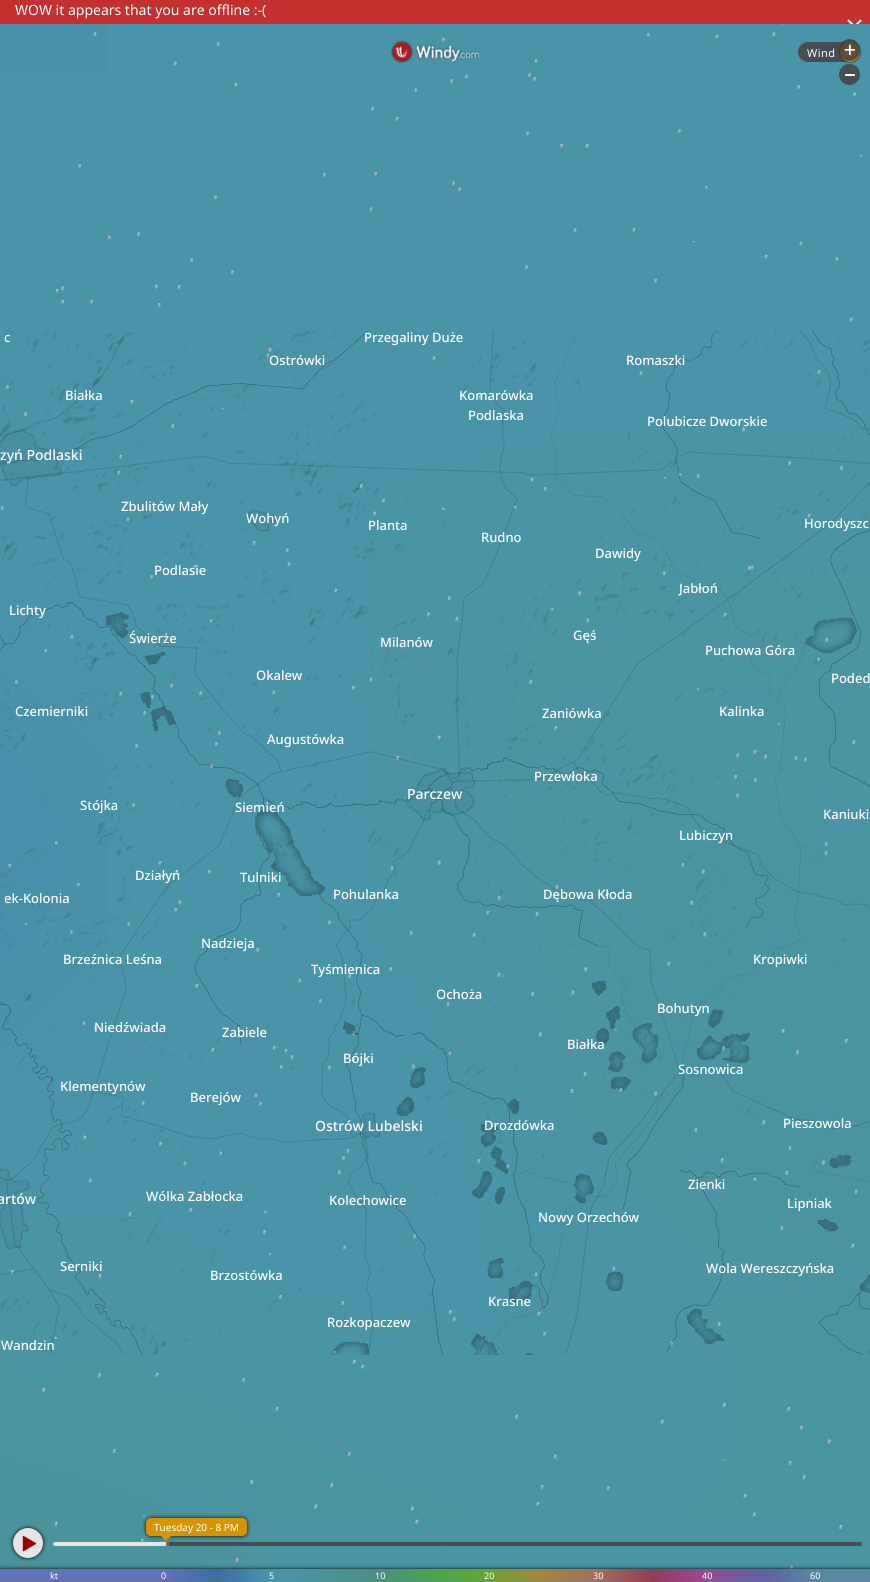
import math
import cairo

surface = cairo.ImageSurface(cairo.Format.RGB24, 870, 1582)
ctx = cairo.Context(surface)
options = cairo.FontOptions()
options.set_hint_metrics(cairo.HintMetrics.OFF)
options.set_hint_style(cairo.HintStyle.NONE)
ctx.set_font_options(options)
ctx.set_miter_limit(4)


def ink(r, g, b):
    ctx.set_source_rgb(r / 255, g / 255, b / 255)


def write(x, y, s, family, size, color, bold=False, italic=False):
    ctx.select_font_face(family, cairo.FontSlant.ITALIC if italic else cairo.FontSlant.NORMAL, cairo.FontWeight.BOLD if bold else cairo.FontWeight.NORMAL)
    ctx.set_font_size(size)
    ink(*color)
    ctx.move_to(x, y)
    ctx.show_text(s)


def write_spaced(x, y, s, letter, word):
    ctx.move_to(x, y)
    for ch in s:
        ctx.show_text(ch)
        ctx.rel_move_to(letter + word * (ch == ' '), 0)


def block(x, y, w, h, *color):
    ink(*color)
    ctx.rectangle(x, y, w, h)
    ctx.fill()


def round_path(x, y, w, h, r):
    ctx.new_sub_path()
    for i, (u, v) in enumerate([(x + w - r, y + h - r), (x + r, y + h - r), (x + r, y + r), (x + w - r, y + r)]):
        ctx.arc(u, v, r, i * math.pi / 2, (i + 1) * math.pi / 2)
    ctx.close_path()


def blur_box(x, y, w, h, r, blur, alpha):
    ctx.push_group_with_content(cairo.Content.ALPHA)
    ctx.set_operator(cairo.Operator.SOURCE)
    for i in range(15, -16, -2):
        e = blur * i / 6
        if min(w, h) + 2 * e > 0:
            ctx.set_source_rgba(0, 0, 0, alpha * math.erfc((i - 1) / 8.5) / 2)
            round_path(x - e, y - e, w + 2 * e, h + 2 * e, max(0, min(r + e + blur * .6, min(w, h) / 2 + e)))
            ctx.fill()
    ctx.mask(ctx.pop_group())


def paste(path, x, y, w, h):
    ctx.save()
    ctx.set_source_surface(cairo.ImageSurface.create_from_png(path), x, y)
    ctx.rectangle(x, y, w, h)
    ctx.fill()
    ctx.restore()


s1 = dict(family="Noto Sans", size=14, color=(255, 255, 255))
s2 = dict(family="Noto Sans Medium", size=13, color=(255, 255, 255))
s3 = dict(family="Noto Sans Medium", size=14, color=(255, 255, 255))
s4 = dict(family="Noto Sans", size=10, color=(255, 255, 255))
s5 = dict(family="Noto Sans", size=9, color=(255, 255, 255))

ink(74, 148, 169)
ctx.paint()
block(0, 0, 870, 24, 196, 47, 47)
write(15, 15, "WOW it appears that you are offline :-(", **s1)
paste("pic1.png", 847, 19, 15, 5)
block(0, 24, 108, 51, 73, 145, 169)
paste("pic6.png", 364, 331, 256, 256)
paste("pic7.png", 620, 331, 250, 256)
paste("pic8.png", 0, 587, 108, 256)
paste("pic9.png", 364, 587, 256, 256)
block(620, 587, 250, 256, 74, 148, 163)
paste("pic10.png", 0, 843, 108, 256)
paste("pic11.png", 364, 843, 256, 256)
block(620, 843, 250, 256, 74, 148, 162)
paste("pic12.png", 0, 1099, 108, 256)
paste("pic13.png", 108, 1099, 256, 256)
paste("pic14.png", 364, 1099, 256, 256)
paste("pic15.png", 620, 1099, 250, 256)
paste("pic16.png", 0, 1355, 108, 214)
paste("pic17.png", 108, 1355, 256, 214)
paste("pic18.png", 364, 1355, 256, 214)
paste("pic19.png", 620, 1355, 250, 214)
paste("pic20.png", 0, 24, 863, 1545)
paste("pic2.png", 390, 40, 24, 24)
paste("pic3.png", 415, 44, 66, 19)
ink(69, 78, 82)
round_path(798, 42, 62, 20, 10)
ctx.fill()
ctx.set_font_size(11)
ink(255, 255, 255)
write_spaced(807, 57, "Wind", 0.5, 0)
ink(0, 0, 0)
blur_box(840, 42, 20, 20, 10, 1, 1)
ink(212, 149, 0)
ctx.arc(850, 52, 10, 0, 2 * math.pi)
ctx.fill()
paste("pic4.png", 844, 50, 11, 7)
ctx.set_source_rgba(0.267, 0.255, 0.255, 0.84)
round_path(839, 39, 21, 22, 10.5)
ctx.fill()
paste("pic5.png", 844, 44, 12, 11)
ink(69, 78, 82)
ctx.arc(849.5, 74.5, 10.5, 0, 2 * math.pi)
ctx.fill()
block(845, 74, 10, 2, 255, 255, 255)
paste("pic21.png", 0, 331, 108, 256)
paste("pic22.png", 108, 331, 256, 256)
paste("pic23.png", 364, 331, 256, 256)
paste("pic24.png", 620, 331, 250, 256)
paste("pic25.png", 0, 587, 108, 256)
paste("pic26.png", 108, 587, 256, 256)
paste("pic27.png", 364, 587, 256, 256)
paste("pic28.png", 620, 587, 250, 256)
paste("pic29.png", 0, 843, 108, 256)
paste("pic30.png", 108, 843, 256, 256)
paste("pic31.png", 364, 843, 256, 256)
paste("pic32.png", 620, 843, 250, 256)
paste("pic33.png", 0, 1099, 108, 256)
paste("pic34.png", 108, 1099, 256, 256)
paste("pic35.png", 364, 1099, 256, 256)
paste("pic36.png", 620, 1099, 250, 256)
write(4, 342, "c", **s2)
write(65, 400, "Białka", **s2)
write(0, 460, "zyń Podlaski", **s3)
write(269, 365, "Ostrówki", **s2)
write(121, 511, "Zbulitów Mały", **s2)
write(246, 523, "Wohyń", **s2)
write(154, 575, "Podlasie", **s2)
write(364, 342, "Przegaliny Duże", **s2)
write(459, 400, "Komarówka", **s2)
write(468, 420, "Podlaska", **s2)
write(368, 530, "Planta", **s2)
write(481, 542, "Rudno", **s2)
write(595, 558, "Dawidy", **s2)
write(626, 365, "Romaszki", **s2)
write(647, 426, "Polubicze Dworskie", **s2)
write(804, 528, "Horodyszc", **s2)
write(9, 615, "Lichty", **s2)
write(15, 716, "Czemierniki", **s2)
write(80, 810, "Stójka", **s2)
write(129, 643, "Świerże", **s2)
write(256, 680, "Okalew", **s2)
write(267, 744, "Augustówka", **s2)
write(235, 812, "Siemień", **s2)
write(380, 647, "Milanów", **s2)
write(573, 640, "Gęś", **s2)
write(542, 718, "Zaniówka", **s2)
write(534, 781, "Przewłoka", **s2)
write(407, 799, "Parczew", **s3)
write(679, 593, "Jabłoń", **s2)
write(705, 655, "Puchowa Góra", **s2)
write(831, 683, "Poded", **s2)
write(719, 716, "Kalinka", **s2)
write(823, 819, "Kaniuki", **s2)
write(679, 840, "Lubiczyn", **s2)
write(135, 880, "Działyń", **s2)
write(240, 882, "Tulniki", **s2)
write(201, 948, "Nadzieja", **s2)
write(63, 964, "Brzeźnica Leśna", **s2)
write(311, 974, "Tyśmienica", **s2)
write(94, 1032, "Niedźwiada", **s2)
write(222, 1037, "Zabiele", **s2)
write(343, 1063, "Bójki", **s2)
write(190, 1102, "Berejów", **s2)
write(333, 899, "Pohulanka", **s2)
write(543, 899, "Dębowa Kłoda", **s2)
write(436, 999, "Ochoża", **s2)
write(567, 1049, "Białka", **s2)
write(4, 903, "ek-Kolonia", **s2)
write(60, 1091, "Klementynów", **s2)
write(753, 964, "Kropiwki", **s2)
write(657, 1013, "Bohutyn", **s2)
write(678, 1074, "Sosnowica", **s2)
write(-3, 1204, "artów", **s3)
write(60, 1271, "Serniki", **s2)
write(1, 1350, "Wandzin", **s2)
write(146, 1201, "Wólka Zabłocka", **s2)
write(210, 1280, "Brzostówka", **s2)
write(315, 1131, "Ostrów Lubelski", **s3)
write(484, 1130, "Drozdówka", **s2)
write(329, 1205, "Kolechowice", **s2)
write(538, 1222, "Nowy Orzechów", **s2)
write(488, 1306, "Krasne", **s2)
write(327, 1327, "Rozkopaczew", **s2)
write(783, 1128, "Pieszowola", **s2)
write(688, 1189, "Zienki", **s2)
write(787, 1208, "Lipniak", **s2)
write(706, 1273, "Wola Wereszczyńska", **s2)
ink(0, 0, 0)
blur_box(13, 1528, 30, 30, 15, 2, 1)
ink(229, 229, 229)
ctx.arc(28, 1543, 15, 0, 2 * math.pi)
ctx.fill()
paste("pic37.png", 22, 1535, 15, 17)
ink(0, 0, 0)
blur_box(146, 1518, 101, 18, 5, 2, 1)
ink(212, 149, 0)
round_path(146, 1518, 101, 18, 5)
ctx.fill()
write(154, 1531, "Tuesday 20 - 8 PM", **s4)
ink(212, 149, 0)
ctx.new_path()
ctx.move_to(161, 1536)
ctx.line_to(171, 1536)
ctx.line_to(166, 1541)
ctx.close_path()
ctx.fill()
ctx.set_source_rgba(0.267, 0.255, 0.255, 0.84)
round_path(53, 1542, 809, 4, 2)
ctx.fill()
ink(229, 229, 229)
ctx.new_path()
ctx.move_to(55, 1542)
ctx.line_to(166, 1542)
ctx.line_to(166, 1546)
ctx.line_to(55, 1546)
ctx.curve_to(54, 1546, 53, 1545, 53, 1544)
ctx.curve_to(53, 1543, 54, 1542, 55, 1542)
ctx.close_path()
ctx.fill()
block(166, 1542, 3, 4, 148, 96, 81)
ink(0, 0, 0)
blur_box(0, 1569, 870, 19, 0, 2, 1)
gradient = cairo.LinearGradient(0, 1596, 870, 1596)
gradient.add_color_stop_rgba(0, 0.384, 0.443, 0.722, 1)
gradient.add_color_stop_rgba(0.19, 0.384, 0.443, 0.722, 1)
gradient.add_color_stop_rgba(0.25, 0.239, 0.431, 0.639, 1)
gradient.add_color_stop_rgba(0.31, 0.29, 0.58, 0.667, 1)
gradient.add_color_stop_rgba(0.38, 0.29, 0.573, 0.58, 1)
gradient.add_color_stop_rgba(0.44, 0.302, 0.557, 0.486, 1)
gradient.add_color_stop_rgba(0.5, 0.298, 0.643, 0.298, 1)
gradient.add_color_stop_rgba(0.56, 0.404, 0.643, 0.212, 1)
gradient.add_color_stop_rgba(0.62, 0.635, 0.529, 0.251, 1)
gradient.add_color_stop_rgba(0.69, 0.635, 0.427, 0.361, 1)
gradient.add_color_stop_rgba(0.75, 0.553, 0.247, 0.361, 1)
gradient.add_color_stop_rgba(0.81, 0.592, 0.294, 0.569, 1)
gradient.add_color_stop_rgba(0.88, 0.373, 0.392, 0.627, 1)
gradient.add_color_stop_rgba(0.94, 0.357, 0.533, 0.631, 1)
gradient.add_color_stop_rgba(1, 0.357, 0.533, 0.631, 1)
ctx.set_source(gradient)
ctx.rectangle(0, 1569, 870, 13)
ctx.fill()
write(50, 1579, "kt", **s5)
write(161, 1579, "0", **s5)
write(269, 1579, "5", **s5)
write(375, 1579, "10", **s5)
write(484, 1579, "20", **s5)
write(593, 1579, "30", **s5)
write(702, 1579, "40", **s5)
write(810, 1579, "60", **s5)
surface.write_to_png("screenshot.png")
